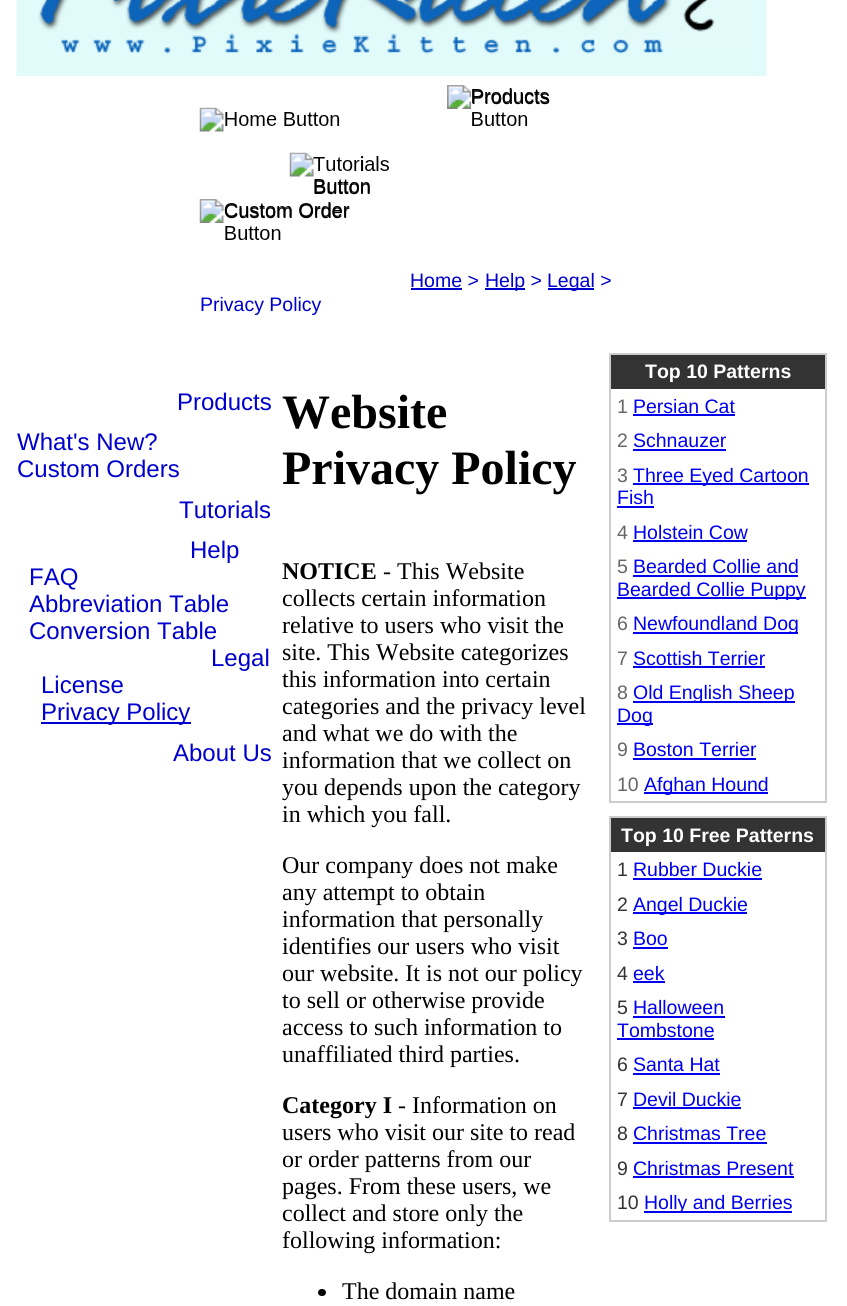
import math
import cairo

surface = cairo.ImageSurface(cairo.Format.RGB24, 847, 1306)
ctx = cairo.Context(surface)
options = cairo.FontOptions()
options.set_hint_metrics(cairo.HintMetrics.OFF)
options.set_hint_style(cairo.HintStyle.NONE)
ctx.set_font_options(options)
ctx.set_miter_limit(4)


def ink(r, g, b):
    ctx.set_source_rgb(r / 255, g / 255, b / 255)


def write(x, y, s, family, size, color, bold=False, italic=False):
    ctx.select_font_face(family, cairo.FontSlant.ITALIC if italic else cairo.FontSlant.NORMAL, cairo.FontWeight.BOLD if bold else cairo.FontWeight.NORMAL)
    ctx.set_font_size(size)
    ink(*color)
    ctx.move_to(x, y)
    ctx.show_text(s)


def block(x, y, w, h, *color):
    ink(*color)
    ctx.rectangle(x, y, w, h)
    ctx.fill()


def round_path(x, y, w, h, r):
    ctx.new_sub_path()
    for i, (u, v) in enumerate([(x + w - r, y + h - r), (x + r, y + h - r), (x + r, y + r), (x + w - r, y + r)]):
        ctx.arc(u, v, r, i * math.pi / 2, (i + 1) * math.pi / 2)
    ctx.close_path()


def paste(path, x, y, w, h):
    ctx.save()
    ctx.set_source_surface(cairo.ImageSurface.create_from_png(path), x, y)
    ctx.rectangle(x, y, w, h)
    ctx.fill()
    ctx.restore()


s1 = dict(family="Liberation Sans", size=20, color=(0, 0, 0))
s2 = dict(family="Liberation Sans", size=19.5, color=(0, 0, 204))
s3 = dict(family="Liberation Sans", size=24, color=(0, 0, 204))
s4 = dict(family="Liberation Serif", size=48, color=(0, 0, 0), bold=True)
s5 = dict(family="Liberation Serif", size=24, color=(0, 0, 0), bold=True)
s6 = dict(family="Liberation Serif", size=24, color=(0, 0, 0))
s7 = dict(family="Liberation Sans", size=19.5, color=(255, 255, 255), bold=True)
s8 = dict(family="Liberation Sans", size=19.5, color=(102, 102, 102))
s9 = dict(family="Liberation Sans", size=19.5, color=(0, 0, 238))
s10 = dict(family="Liberation Sans", size=19.5, color=(51, 51, 51))

ink(255, 255, 255)
ctx.paint()
paste("pic1.png", 16, 0, 751, 76)
paste("pic2.png", 447, 85, 102, 41)
write(471, 104, "Products", **s1)
paste("pic3.png", 199, 107, 141, 25)
paste("pic4.png", 289, 152, 100, 41)
write(360, 171, "i", **s1)
write(313, 194, "Button", **s1)
paste("pic5.png", 199, 199, 151, 41)
write(224, 218, "Custom Order", **s1)
write(410, 287, "Home >", **s2)
block(411, 288, 51, 2, 0, 0, 204)
block(485, 288, 40, 2, 0, 0, 204)
write(485, 287, "Help >", **s2)
block(548, 288, 46, 2, 0, 0, 204)
write(547, 287, "Legal >", **s2)
write(200, 311, "Privacy Policy", **s2)
write(177, 410, "Products", **s3)
write(17, 450, "What's New?", **s3)
write(17, 477, "Custom Orders", **s3)
write(179, 518, "Tutorials", **s3)
write(190, 558, "Help", **s3)
write(29, 585, "FAQ", **s3)
write(29, 612, "Abbreviation Table", **s3)
write(29, 639, "Conversion Table", **s3)
write(211, 666, "Legal", **s3)
write(41, 693, "License", **s3)
block(41, 722, 150, 2, 0, 0, 204)
write(41, 720, "Privacy Policy", **s3)
write(173, 761, "About Us", **s3)
write(282, 428, "Website", **s4)
write(282, 484, "Privacy Policy", **s4)
write(282, 579, "NOTICE", **s5)
write(383, 579, "- This Website", **s6)
write(282, 606, "collects certain information", **s6)
write(282, 633, "relative to users who visit the", **s6)
write(282, 660, "site. This Website categorizes", **s6)
write(282, 687, "this information into certain", **s6)
write(282, 714, "categories and the privacy level", **s6)
write(282, 741, "and what we do with the", **s6)
write(282, 768, "information that we collect on", **s6)
write(282, 795, "you depends upon the category", **s6)
write(282, 822, "in which you fall.", **s6)
write(282, 873, "Our company does not make", **s6)
write(282, 900, "any attempt to obtain", **s6)
write(282, 927, "information that personally", **s6)
write(282, 954, "identifies our users who visit", **s6)
write(282, 981, "our website. It is not our policy", **s6)
write(282, 1008, "to sell or otherwise provide", **s6)
write(282, 1035, "access to such information to", **s6)
write(282, 1062, "unaffiliated third parties.", **s6)
write(282, 1113, "Category I", **s5)
write(398, 1113, "- Information on", **s6)
write(282, 1140, "users who visit our site to read", **s6)
write(282, 1167, "or order patterns from our", **s6)
write(282, 1194, "pages. From these users, we", **s6)
write(282, 1221, "collect and store only the", **s6)
write(282, 1248, "following information:", **s6)
round_path(318, 1289, 8, 7, 3.5)
ctx.fill()
write(342, 1299, "The domain name", **s6)
block(609, 353, 218, 2, 204, 204, 204)
block(825, 353, 2, 450, 204, 204, 204)
block(609, 801, 218, 2, 204, 204, 204)
block(609, 353, 2, 450, 204, 204, 204)
block(611, 355, 214, 34, 51, 51, 51)
write(645, 378, "Top 10 Patterns", **s7)
write(617, 413, "1", **s8)
write(633, 413, "Persian Cat", **s9)
block(633, 414, 102, 2, 0, 0, 238)
write(617, 447, "2", **s8)
write(633, 447, "Schnauzer", **s9)
block(633, 449, 93, 2, 0, 0, 238)
write(617, 482, "3", **s8)
block(633, 483, 176, 2, 0, 0, 238)
write(633, 482, "Three Eyed Cartoon", **s9)
write(617, 504, "Fish", **s9)
block(617, 506, 37, 2, 0, 0, 238)
write(617, 539, "4", **s8)
write(633, 539, "Holstein Cow", **s9)
block(633, 540, 114, 2, 0, 0, 238)
write(617, 573, "5", **s8)
write(633, 573, "Bearded Collie and", **s9)
block(633, 575, 165, 2, 0, 0, 238)
block(617, 597, 189, 2, 0, 0, 238)
write(617, 596, "Bearded Collie Puppy", **s9)
write(617, 630, "6", **s8)
block(633, 632, 165, 2, 0, 0, 238)
write(633, 630, "Newfoundland Dog", **s9)
write(617, 665, "7", **s8)
write(633, 665, "Scottish Terrier", **s9)
block(633, 666, 132, 2, 0, 0, 238)
write(617, 699, "8", **s8)
block(633, 701, 162, 2, 0, 0, 238)
write(633, 699, "Old English Sheep", **s9)
block(617, 723, 36, 2, 0, 0, 238)
write(617, 722, "Dog", **s9)
write(617, 756, "9", **s8)
write(633, 756, "Boston Terrier", **s9)
block(633, 758, 123, 2, 0, 0, 238)
write(617, 791, "10", **s8)
block(644, 792, 124, 2, 0, 0, 238)
write(644, 791, "Afghan Hound", **s9)
block(609, 816, 218, 2, 204, 204, 204)
block(825, 816, 2, 405, 204, 204, 204)
block(609, 1220, 218, 2, 204, 204, 204)
block(609, 816, 2, 405, 204, 204, 204)
block(611, 818, 214, 34, 51, 51, 51)
write(621, 842, "Top 10 Free Patterns", **s7)
write(617, 876, "1", **s10)
write(633, 876, "Rubber Duckie", **s9)
block(633, 878, 129, 2, 0, 0, 238)
write(617, 911, "2", **s10)
block(633, 912, 114, 2, 0, 0, 238)
write(633, 911, "Angel Duckie", **s9)
write(617, 945, "3", **s10)
write(633, 945, "Boo", **s9)
block(633, 947, 35, 2, 0, 0, 238)
write(617, 980, "4", **s10)
write(633, 980, "eek", **s9)
block(633, 981, 32, 2, 0, 0, 238)
write(617, 1014, "5", **s10)
write(633, 1014, "Halloween", **s9)
block(633, 1016, 92, 2, 0, 0, 238)
write(617, 1037, "Tombstone", **s9)
block(617, 1038, 97, 2, 0, 0, 238)
write(617, 1071, "6", **s10)
write(633, 1071, "Santa Hat", **s9)
block(633, 1073, 87, 2, 0, 0, 238)
write(617, 1106, "7", **s10)
write(633, 1106, "Devil Duckie", **s9)
block(633, 1107, 108, 2, 0, 0, 238)
write(617, 1140, "8", **s10)
write(633, 1140, "Christmas Tree", **s9)
block(633, 1142, 134, 2, 0, 0, 238)
write(617, 1175, "9", **s10)
write(633, 1175, "Christmas Present", **s9)
block(633, 1176, 161, 2, 0, 0, 238)
write(617, 1209, "10", **s10)
block(644, 1211, 148, 2, 0, 0, 238)
write(644, 1209, "Holly and Berries", **s9)
surface.write_to_png("screenshot.png")
